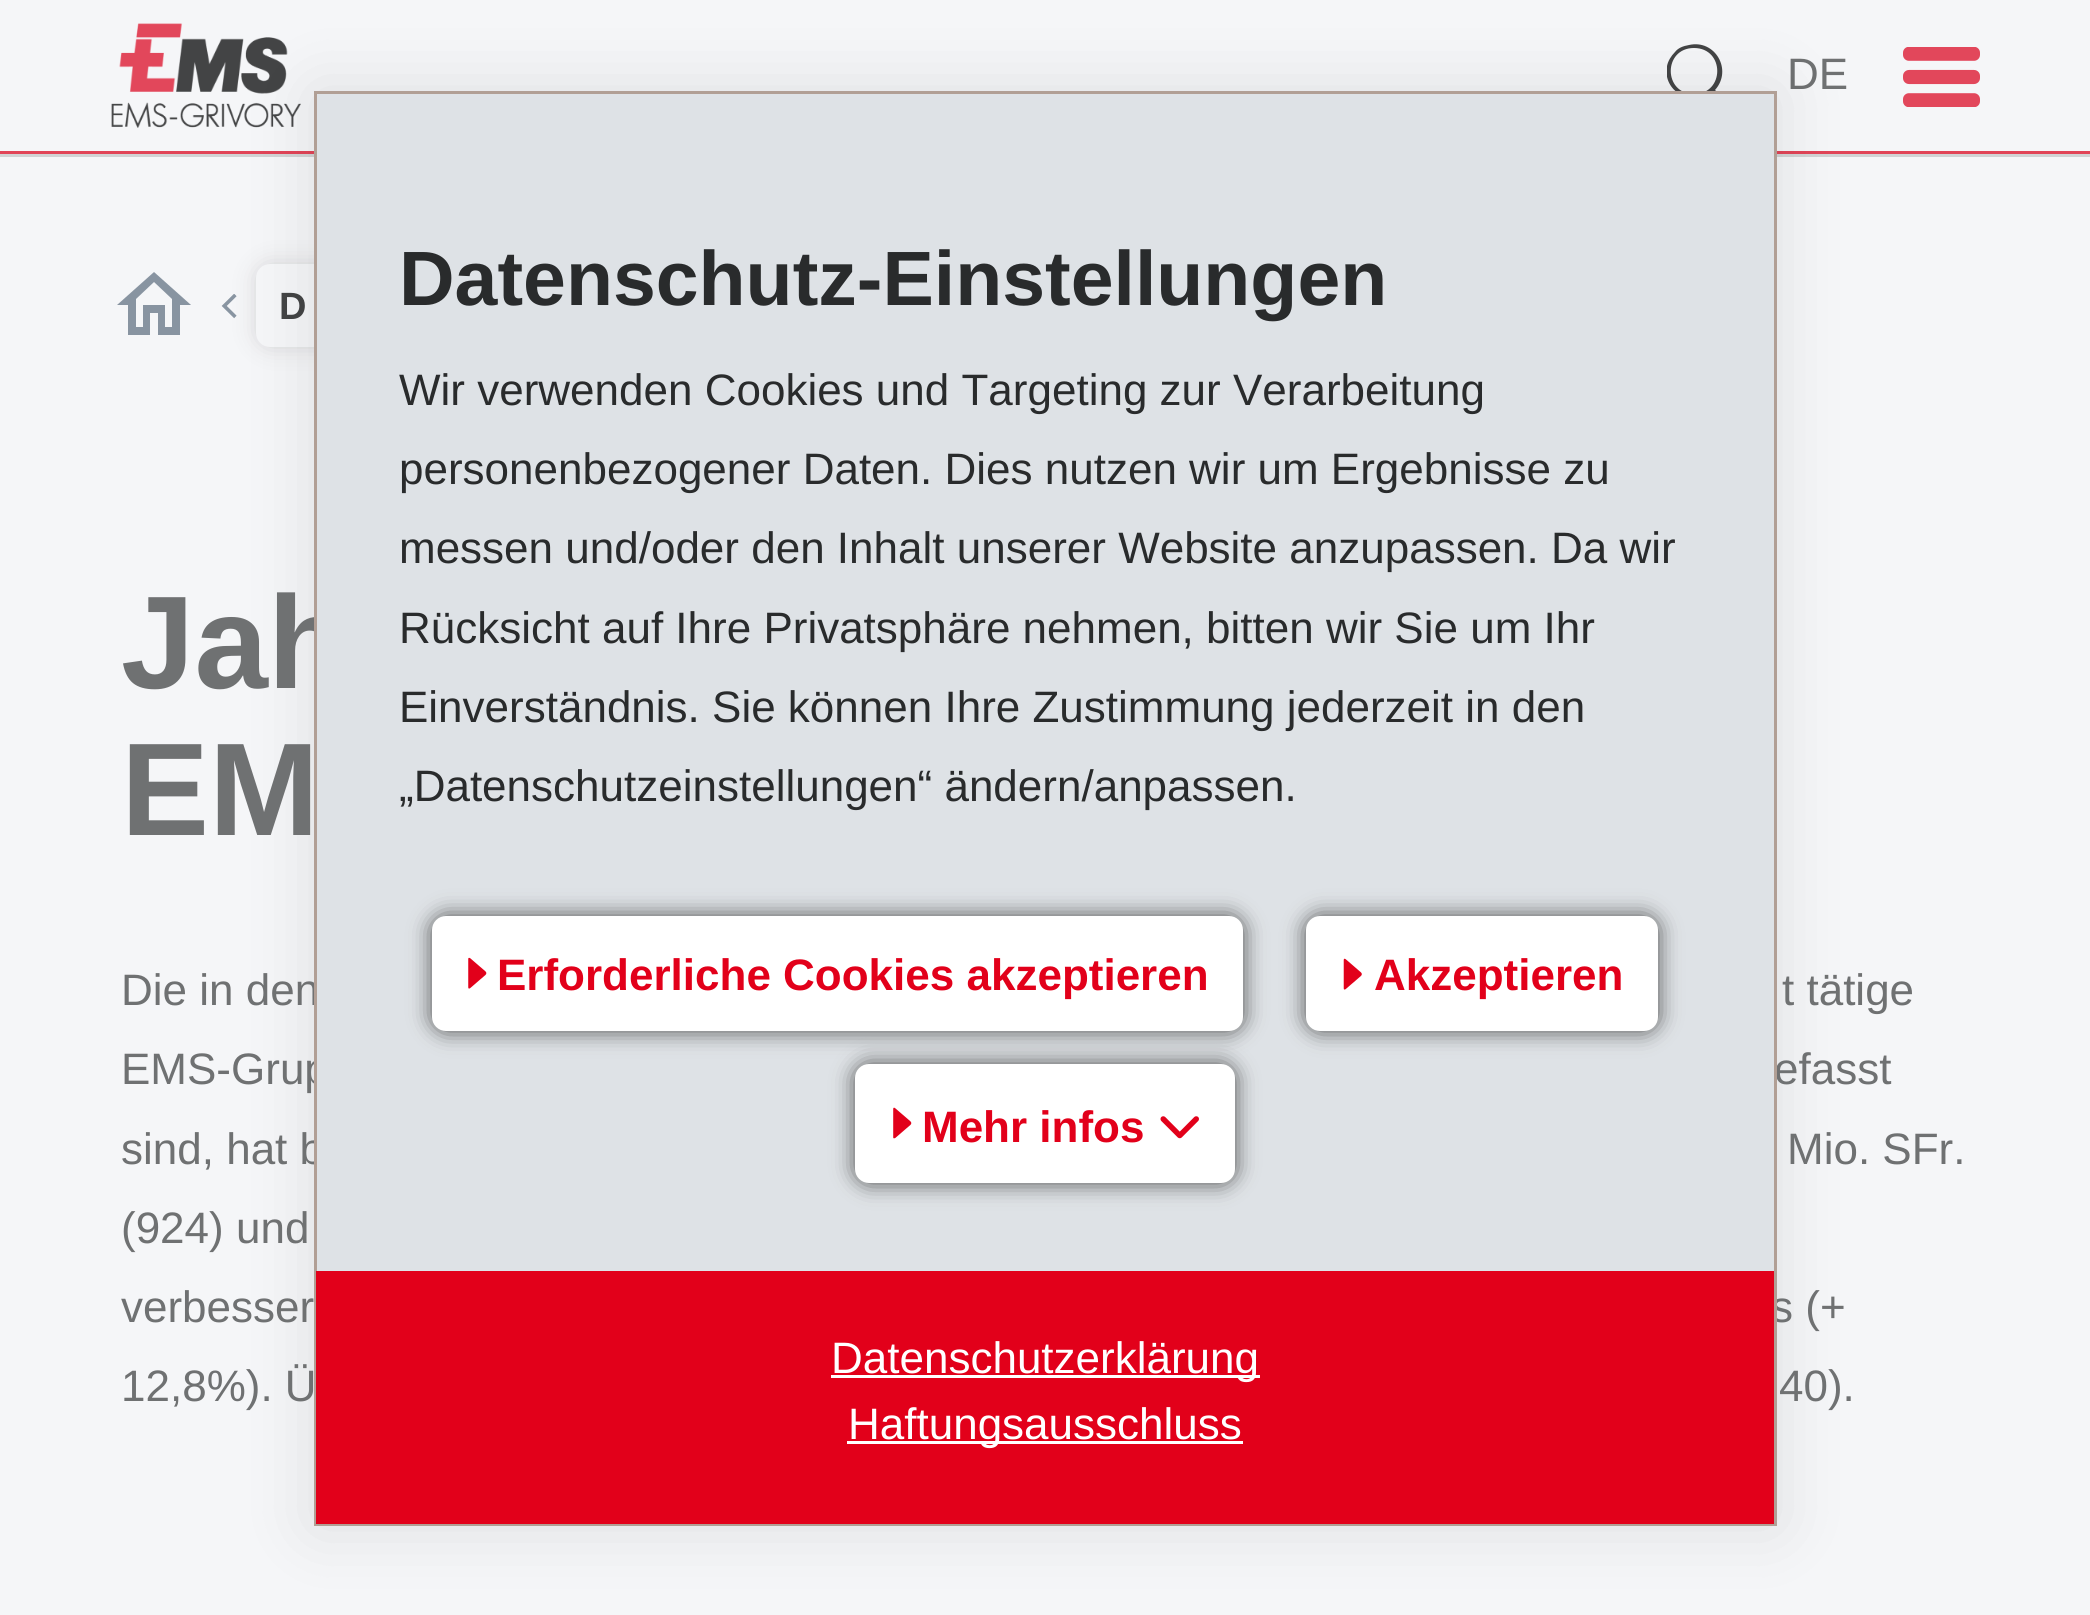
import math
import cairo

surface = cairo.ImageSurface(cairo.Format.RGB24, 2090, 1615)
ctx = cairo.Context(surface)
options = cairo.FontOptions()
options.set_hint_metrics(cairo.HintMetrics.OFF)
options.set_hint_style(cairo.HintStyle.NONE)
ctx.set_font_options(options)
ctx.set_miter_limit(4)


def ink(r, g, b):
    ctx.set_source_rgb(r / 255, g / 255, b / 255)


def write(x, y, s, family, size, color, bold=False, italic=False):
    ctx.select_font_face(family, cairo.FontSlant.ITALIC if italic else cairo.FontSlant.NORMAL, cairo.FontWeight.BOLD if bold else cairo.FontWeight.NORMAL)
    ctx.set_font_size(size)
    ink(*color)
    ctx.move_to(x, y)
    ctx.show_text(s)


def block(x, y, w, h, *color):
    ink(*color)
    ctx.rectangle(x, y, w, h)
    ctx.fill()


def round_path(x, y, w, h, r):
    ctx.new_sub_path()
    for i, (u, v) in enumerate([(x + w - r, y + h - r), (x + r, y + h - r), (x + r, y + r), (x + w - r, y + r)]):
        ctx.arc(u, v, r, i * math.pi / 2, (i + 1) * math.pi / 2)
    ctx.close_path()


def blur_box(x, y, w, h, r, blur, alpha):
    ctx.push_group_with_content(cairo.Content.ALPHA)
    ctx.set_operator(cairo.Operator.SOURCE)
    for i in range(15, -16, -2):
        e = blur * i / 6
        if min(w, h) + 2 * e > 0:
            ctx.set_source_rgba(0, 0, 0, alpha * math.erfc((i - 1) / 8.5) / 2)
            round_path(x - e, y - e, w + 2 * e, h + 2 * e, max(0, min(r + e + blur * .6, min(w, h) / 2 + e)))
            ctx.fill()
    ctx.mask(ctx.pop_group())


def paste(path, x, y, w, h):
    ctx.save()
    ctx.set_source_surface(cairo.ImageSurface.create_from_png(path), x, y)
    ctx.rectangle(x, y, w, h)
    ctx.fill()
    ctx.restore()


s1 = dict(family="Liberation Sans", size=44, color=(111, 113, 114))
s2 = dict(family="Liberation Sans", size=38, color=(67, 68, 69), bold=True)
s3 = dict(family="Liberation Sans", size=132, color=(111, 113, 114), bold=True)
s4 = dict(family="Liberation Sans", size=77, color=(41, 43, 44), bold=True)
s5 = dict(family="Liberation Sans", size=44, color=(41, 43, 44))
s6 = dict(family="Liberation Sans", size=44, color=(226, 0, 26), bold=True)
s7 = dict(family="Liberation Sans", size=44, color=(255, 255, 255))

ink(245, 246, 248)
ctx.paint()
block(0, 154, 2090, 3, 209, 211, 212)
block(0, 151, 2090, 3, 225, 68, 87)
paste("pic1.png", 111, 23, 190, 105)
ctx.save()
ctx.rectangle(1667, 44, 66, 66)
ctx.clip()
ink(67, 68, 69)
ctx.new_path()
ctx.move_to(1732, 106)
ctx.line_to(1715, 90)
ctx.curve_to(1733, 70, 1715, 39, 1689, 45)
ctx.curve_to(1683, 46, 1678, 48, 1675, 52)
ctx.curve_to(1671, 56, 1668, 61, 1667, 66)
ctx.curve_to(1662, 91, 1692, 108, 1712, 93)
ctx.line_to(1729, 110)
ctx.line_to(1731, 110)
ctx.curve_to(1733, 109, 1733, 107, 1732, 106)
ctx.close_path()
ctx.move_to(1694, 94)
ctx.curve_to(1663, 94, 1663, 48, 1694, 48)
ctx.curve_to(1725, 48, 1725, 94, 1694, 94)
ctx.close_path()
ctx.fill()
ctx.restore()
write(1787, 89, "DE", **s1)
paste("pic2.png", 1903, 47, 77, 60)
ink(136, 148, 161)
ctx.new_path()
ctx.move_to(154, 282)
ctx.line_to(172, 299)
ctx.line_to(172, 327)
ctx.line_to(165, 327)
ctx.line_to(165, 305)
ctx.line_to(143, 305)
ctx.line_to(143, 327)
ctx.line_to(136, 327)
ctx.line_to(136, 299)
ctx.close_path()
ctx.move_to(154, 272)
ctx.line_to(117, 305)
ctx.line_to(128, 305)
ctx.line_to(128, 335)
ctx.line_to(150, 335)
ctx.line_to(150, 313)
ctx.line_to(158, 313)
ctx.line_to(158, 335)
ctx.line_to(180, 335)
ctx.line_to(180, 305)
ctx.line_to(191, 305)
ctx.close_path()
ctx.fill()
ink(214, 215, 216)
blur_box(256, 264, 203, 83, 14, 11, 1)
paste("pic3.png", 221, 294, 16, 25)
ink(245, 246, 248)
round_path(256, 264, 203, 83, 14)
ctx.fill()
write(279, 319, "D", **s2)
ink(0, 0, 0)
blur_box(314, 91, 1463, 1435, 0, 34.5, 0.1)
write(121, 688, "Jah", **s3)
write(121, 1084, "EMS-Grup", **s1)
write(121, 1164, "sind, hat b", **s1)
block(317, 94, 1457, 1177, 222, 226, 230)
write(121, 1005, "Die in den", **s1)
write(1774, 1084, "efasst", **s1)
write(1771, 1322, "s (+", **s1)
ctx.rectangle(315.5, 92.5, 1460, 1432)
ink(177, 159, 149)
ctx.set_line_width(3)
ctx.stroke()
write(399, 305, "Datenschutz-Einstellungen", **s4)
write(399, 405, "Wir verwenden Cookies und Targeting zur Verarbeitung", **s5)
write(399, 484, "personenbezogener Daten. Dies nutzen wir um Ergebnisse zu", **s5)
write(399, 563, "messen und/oder den Inhalt unserer Website anzupassen. Da wir", **s5)
write(399, 643, "Rücksicht auf Ihre Privatsphäre nehmen, bitten wir Sie um Ihr", **s5)
write(399, 722, "Einverständnis. Sie können Ihre Zustimmung jederzeit in den", **s5)
write(399, 801, "„Datenschutzeinstellungen“ ändern/anpassen.", **s5)
ink(78, 78, 78)
blur_box(432, 916, 811, 115, 14, 11, 1)
ink(255, 255, 255)
round_path(432, 916, 811, 115, 14)
ctx.fill()
paste("pic4.png", 468, 957, 19, 32)
write(497, 990, "Erforderliche Cookies akzeptieren", **s6)
ink(78, 78, 78)
blur_box(1306, 916, 352, 115, 14, 11, 1)
ink(255, 255, 255)
round_path(1306, 916, 352, 115, 14)
ctx.fill()
paste("pic5.png", 1343, 958, 19, 32)
write(1374, 990, "Akzeptieren", **s6)
ink(78, 78, 78)
blur_box(855, 1064, 380, 119, 14, 11, 1)
ink(255, 255, 255)
round_path(855, 1064, 380, 119, 14)
ctx.fill()
paste("pic6.png", 893, 1107, 19, 32)
write(922, 1142, "Mehr infos", **s6)
paste("pic7.png", 1160, 1116, 39, 23)
block(316, 1271, 1458, 253, 226, 0, 26)
block(831, 1375, 429, 3, 255, 255, 255)
write(831, 1373, "Datenschutzerklärung", **s7)
block(847, 1441, 396, 3, 255, 255, 255)
write(848, 1439, "Haftungsausschluss", **s7)
write(121, 835, "EM", **s3)
write(1782, 1005, "t tätige", **s1)
write(1787, 1164, "Mio. SFr.", **s1)
write(121, 1243, "(924) und", **s1)
write(121, 1322, "verbesser", **s1)
write(121, 1401, "12,8%). Ü", **s1)
write(1779, 1401, "40).", **s1)
surface.write_to_png("screenshot.png")
